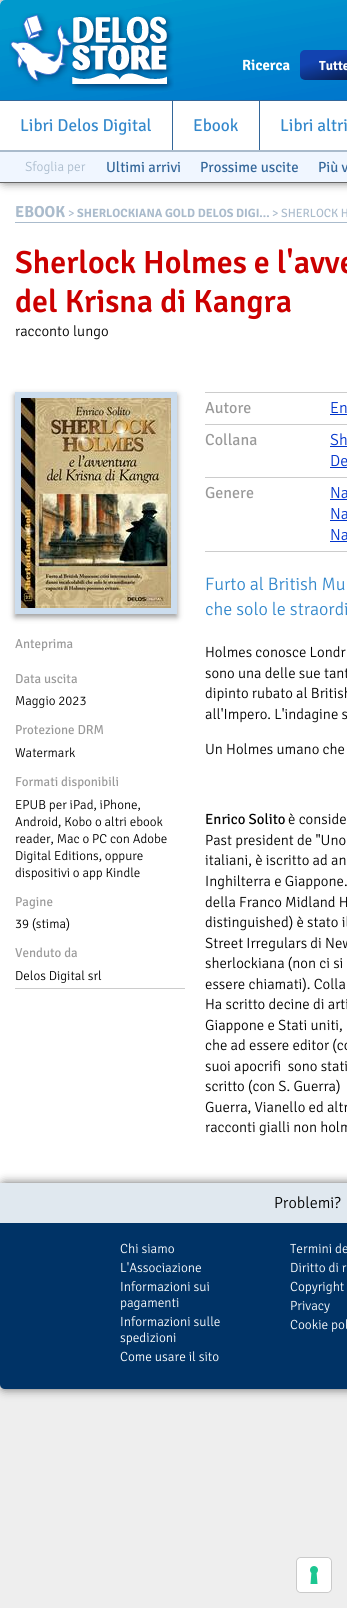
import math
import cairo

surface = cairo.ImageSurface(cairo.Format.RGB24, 347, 1608)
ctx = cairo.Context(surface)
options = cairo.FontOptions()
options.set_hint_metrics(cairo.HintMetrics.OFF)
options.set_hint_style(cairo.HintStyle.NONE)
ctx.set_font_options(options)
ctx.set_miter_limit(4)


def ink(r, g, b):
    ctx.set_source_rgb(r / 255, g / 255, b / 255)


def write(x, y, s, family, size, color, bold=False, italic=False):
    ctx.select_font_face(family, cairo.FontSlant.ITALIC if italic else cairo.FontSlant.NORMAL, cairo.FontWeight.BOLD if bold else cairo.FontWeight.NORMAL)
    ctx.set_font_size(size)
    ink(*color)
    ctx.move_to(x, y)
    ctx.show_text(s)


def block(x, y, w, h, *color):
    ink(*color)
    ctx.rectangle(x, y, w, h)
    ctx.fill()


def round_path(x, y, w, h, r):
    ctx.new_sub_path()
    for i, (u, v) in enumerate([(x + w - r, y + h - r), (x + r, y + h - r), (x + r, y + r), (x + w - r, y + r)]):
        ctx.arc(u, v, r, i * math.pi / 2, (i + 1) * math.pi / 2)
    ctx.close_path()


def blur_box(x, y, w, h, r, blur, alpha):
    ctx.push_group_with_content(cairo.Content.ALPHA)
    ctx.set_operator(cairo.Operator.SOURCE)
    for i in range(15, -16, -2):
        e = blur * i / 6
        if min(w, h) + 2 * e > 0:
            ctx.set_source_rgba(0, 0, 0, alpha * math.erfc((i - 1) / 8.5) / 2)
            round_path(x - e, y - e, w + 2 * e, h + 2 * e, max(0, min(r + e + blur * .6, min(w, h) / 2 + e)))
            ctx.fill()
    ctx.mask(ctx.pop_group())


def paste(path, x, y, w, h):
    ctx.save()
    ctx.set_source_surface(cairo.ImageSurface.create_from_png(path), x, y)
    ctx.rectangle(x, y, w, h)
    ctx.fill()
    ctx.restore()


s1 = dict(family="Signika Negative", size=14.75, color=(255, 255, 255), bold=True)
s2 = dict(family="Signika Negative", size=13.25, color=(255, 255, 255), bold=True)
s3 = dict(family="Signika Negative", size=17.25, color=(51, 136, 204))
s4 = dict(family="Signika Negative Light", size=13.25, color=(170, 187, 204))
s5 = dict(family="Signika Negative", size=14.75, color=(51, 102, 153))
s6 = dict(family="Signika Negative", size=16, color=(170, 187, 204), bold=True)
s7 = dict(family="Signika Negative", size=12, color=(170, 187, 204))
s8 = dict(family="Signika Negative", size=12, color=(170, 187, 204), bold=True)
s9 = dict(family="Signika Negative SemiBold", size=32, color=(204, 0, 0))
s10 = dict(family="Signika Negative Light", size=14.75, color=(0, 0, 0))
s11 = dict(family="Signika Negative", size=13, color=(153, 153, 153))
s12 = dict(family="Signika Negative Light", size=13, color=(0, 0, 0))
s13 = dict(family="Signika Negative", size=16, color=(153, 153, 153))
s14 = dict(family="Signika Negative Light", size=16, color=(0, 51, 204))
s15 = dict(family="Signika Negative Light", size=18, color=(51, 136, 204))
s16 = dict(family="Signika Negative", size=14.75, color=(0, 0, 0))
s17 = dict(family="Signika Negative Light", size=16, color=(0, 0, 0))
s18 = dict(family="Signika Negative Light", size=13.25, color=(255, 255, 255))

ink(238, 238, 238)
ctx.paint()
block(0, 0, 347, 1389, 255, 255, 255)
ctx.save()
ctx.set_fill_rule(cairo.FillRule.EVEN_ODD)
ctx.new_path()
ctx.move_to(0, 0)
ctx.line_to(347, 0)
ctx.line_to(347, 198)
ctx.line_to(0, 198)
ctx.close_path()
ctx.move_to(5, 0)
ctx.line_to(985, 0)
ctx.curve_to(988, 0, 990, 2, 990, 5)
ctx.line_to(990, 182)
ctx.line_to(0, 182)
ctx.line_to(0, 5)
ctx.curve_to(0, 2, 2, 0, 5, 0)
ctx.close_path()
ctx.clip()
ink(102, 102, 102)
blur_box(0, 0, 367, 182, 5, 5, 1)
ctx.restore()
paste("pic1.png", 0, 0, 347, 100)
paste("pic2.png", 9, 13, 165, 78)
write(242, 70, "Ricerca", **s1)
paste("pic3.png", 300, 50, 47, 30)
write(319, 70, "Tutte", **s2)
block(0, 100, 347, 1, 51, 102, 153)
block(172, 101, 1, 50, 51, 102, 153)
write(20, 131, "Libri Delos Digital", **s3)
block(259, 101, 1, 50, 51, 102, 153)
write(193, 131, "Ebook", **s3)
write(280, 131, "Libri altri", **s3)
block(0, 152, 347, 30, 240, 246, 255)
block(0, 150, 347, 2, 170, 187, 204)
block(0, 182, 347, 1, 102, 102, 102)
write(25, 171, "Sfoglia per", **s4)
write(106, 172, "Ultimi arrivi", **s5)
write(200, 172, "Prossime uscite", **s5)
write(318, 172, "Più v", **s5)
block(15, 222, 332, 1, 170, 187, 204)
write(15, 217, "EBOOK", **s6)
write(68, 217, ">", **s7)
write(77, 217, "SHERLOCKIANA GOLD DELOS DIGI...", **s8)
write(272, 217, "> SHERLOCK H", **s7)
write(15, 273, "Sherlock Holmes e l'avve", **s9)
write(15, 312, "del Krisna di Kangra", **s9)
write(15, 336, "racconto lungo", **s10)
ink(153, 153, 153)
blur_box(15, 395, 162, 222, 0, 3, 1)
ctx.rectangle(18, 395, 156, 216)
ink(204, 221, 238)
ctx.set_line_width(6)
ctx.stroke()
paste("pic4.png", 21, 398, 150, 210)
block(15, 988, 170, 1, 204, 204, 204)
write(15, 648, "Anteprima", **s11)
write(15, 683, "Data uscita", **s11)
write(15, 705, "Maggio 2023", **s12)
write(15, 734, "Protezione DRM", **s11)
write(15, 757, "Watermark", **s12)
write(15, 786, "Formati disponibili", **s11)
write(15, 809, "EPUB per iPad, iPhone,", **s12)
write(15, 826, "Android, Kobo o altri ebook", **s12)
write(15, 843, "reader, Mac o PC con Adobe", **s12)
write(15, 860, "Digital Editions, oppure", **s12)
write(15, 877, "dispositivi o app Kindle", **s12)
write(15, 906, "Pagine", **s11)
write(15, 928, "39 (stima)", **s12)
write(15, 957, "Venduto da", **s11)
write(15, 980, "Delos Digital srl", **s12)
block(205, 551, 142, 1, 204, 204, 204)
block(205, 392, 142, 1, 204, 204, 204)
write(205, 413, "Autore", **s13)
write(330, 413, "En", **s14)
block(330, 414, 17, 1, 0, 51, 204)
block(205, 424, 142, 1, 204, 204, 204)
write(205, 445, "Collana", **s13)
write(330, 445, "Sh", **s14)
block(330, 446, 17, 1, 0, 51, 204)
write(330, 466, "De", **s14)
block(330, 467, 17, 1, 0, 51, 204)
block(205, 477, 142, 1, 204, 204, 204)
write(205, 498, "Genere", **s13)
write(330, 498, "Na", **s14)
block(330, 499, 17, 1, 0, 51, 204)
write(330, 519, "Na", **s14)
block(330, 520, 17, 1, 0, 51, 204)
write(330, 540, "Na", **s14)
block(330, 541, 17, 1, 0, 51, 204)
write(205, 590, "Furto al British Mu", **s15)
write(205, 615, "che solo le straordi", **s15)
write(205, 657, "Holmes conosce Londr", **s10)
write(205, 678, "sono una delle sue tant", **s10)
write(205, 698, "dipinto rubato al British", **s10)
write(205, 719, "all'Impero. L'indagine s", **s10)
write(205, 754, "Un Holmes umano che", **s10)
write(205, 824, "Enrico Solito", **s16)
write(288, 824, "è conside", **s10)
write(205, 845, "Past president de \"Uno", **s10)
write(205, 865, "italiani, è iscritto ad an", **s10)
write(205, 886, "Inghilterra e Giappone.", **s10)
write(205, 907, "della Franco Midland H", **s10)
write(205, 927, "distinguished) è stato il", **s10)
write(205, 948, "Street Irregulars di New", **s10)
write(205, 968, "sherlockiana (non ci si", **s10)
write(205, 989, "essere chiamati). Colla", **s10)
write(205, 1009, "Ha scritto decine di arti", **s10)
write(205, 1030, "Giappone e Stati uniti,", **s10)
write(205, 1050, "che ad essere editor (co", **s10)
write(205, 1071, "suoi apocrifi  sono stati", **s10)
write(205, 1091, "scritto (con S. Guerra)", **s10)
write(205, 1112, "Guerra, Vianello ed altr", **s10)
write(205, 1132, "racconti gialli non holm", **s10)
ink(102, 102, 102)
blur_box(0, 1183, 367, 206, 5, 5, 1)
ink(0, 51, 102)
ctx.new_path()
ctx.move_to(0, 1183)
ctx.line_to(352, 1183)
ctx.line_to(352, 1384)
ctx.curve_to(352, 1387, 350, 1389, 347, 1389)
ctx.line_to(5, 1389)
ctx.curve_to(2, 1389, 0, 1387, 0, 1384)
ctx.close_path()
ctx.fill()
block(0, 1183, 347, 40, 224, 232, 239)
write(274, 1208, "Problemi?", **s17)
write(120, 1253, "Chi siamo", **s18)
write(120, 1272, "L'Associazione", **s18)
write(120, 1291, "Informazioni sui", **s18)
write(120, 1307, "pagamenti", **s18)
write(120, 1326, "Informazioni sulle", **s18)
write(120, 1342, "spedizioni", **s18)
write(120, 1361, "Come usare il sito", **s18)
write(290, 1253, "Termini de", **s18)
write(290, 1272, "Diritto di r", **s18)
write(290, 1291, "Copyright", **s18)
write(290, 1310, "Privacy", **s18)
write(290, 1329, "Cookie pol", **s18)
round_path(296.5, 1557.5, 35, 35, 4.5)
ink(202, 202, 202)
ctx.set_line_width(1)
ctx.stroke()
ink(255, 255, 255)
round_path(297, 1558, 34, 34, 4)
ctx.fill()
paste("pic5.png", 310, 1566, 8, 18)
surface.write_to_png("screenshot.png")
